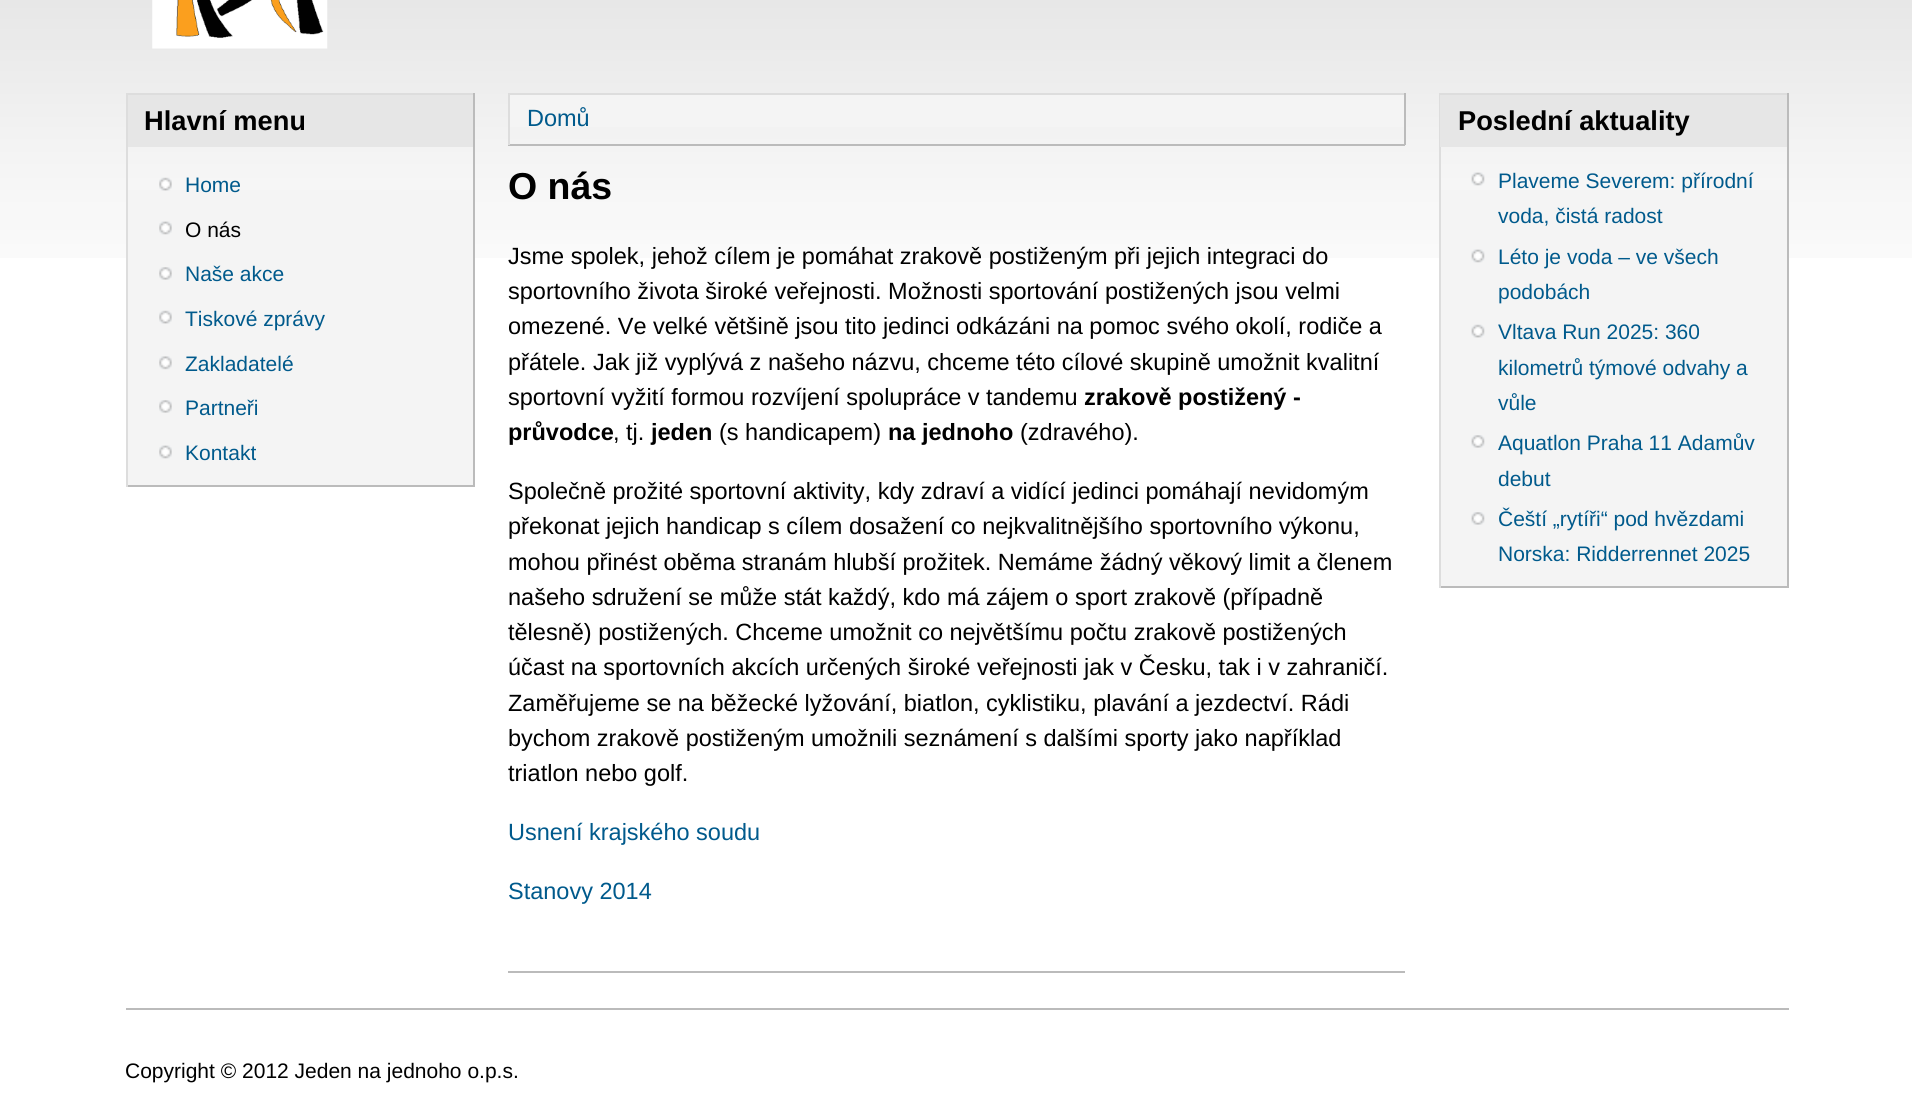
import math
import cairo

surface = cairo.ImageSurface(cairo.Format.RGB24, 1912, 1099)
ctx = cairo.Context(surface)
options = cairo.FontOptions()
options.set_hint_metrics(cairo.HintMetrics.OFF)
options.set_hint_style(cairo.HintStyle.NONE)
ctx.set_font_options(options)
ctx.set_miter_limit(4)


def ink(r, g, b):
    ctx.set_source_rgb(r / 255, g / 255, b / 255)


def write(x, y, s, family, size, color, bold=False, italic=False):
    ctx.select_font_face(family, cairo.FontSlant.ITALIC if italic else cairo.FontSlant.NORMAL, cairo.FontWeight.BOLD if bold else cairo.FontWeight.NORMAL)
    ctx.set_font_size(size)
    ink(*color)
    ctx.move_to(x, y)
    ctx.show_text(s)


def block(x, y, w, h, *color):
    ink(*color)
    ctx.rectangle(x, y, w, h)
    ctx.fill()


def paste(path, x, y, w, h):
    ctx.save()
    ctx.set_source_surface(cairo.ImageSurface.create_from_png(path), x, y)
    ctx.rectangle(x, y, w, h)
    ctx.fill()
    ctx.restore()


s1 = dict(family="Liberation Sans", size=27.25, color=(0, 0, 0), bold=True)
s2 = dict(family="Liberation Sans", size=21, color=(0, 90, 140))
s3 = dict(family="Liberation Sans", size=21, color=(0, 0, 0))
s4 = dict(family="Liberation Sans", size=23.5, color=(0, 90, 140))
s5 = dict(family="Liberation Sans", size=37.5, color=(0, 0, 0), bold=True)
s6 = dict(family="Liberation Sans", size=23.5, color=(0, 0, 0))
s7 = dict(family="Liberation Sans", size=23.5, color=(0, 0, 0), bold=True)

ink(255, 255, 255)
ctx.paint()
paste("pic1.png", 0, 0, 1912, 258)
paste("pic2.png", 152, 0, 176, 49)
block(128, 190, 345, 295, 244, 244, 244)
block(126, 93, 348, 2, 221, 221, 221)
block(473, 93, 2, 394, 187, 187, 187)
block(126, 485, 348, 2, 187, 187, 187)
block(126, 93, 2, 394, 221, 221, 221)
block(128, 95, 345, 52, 230, 230, 230)
write(144, 130, "Hlavní menu", **s1)
paste("pic3.png", 159, 177, 13, 14)
write(185, 192, "Home", **s2)
paste("pic4.png", 159, 221, 13, 14)
write(185, 237, "O nás", **s3)
paste("pic5.png", 159, 267, 13, 13)
write(185, 281, "Naše akce", **s2)
paste("pic3.png", 159, 310, 13, 14)
write(185, 326, "Tiskové zprávy", **s2)
paste("pic6.png", 159, 356, 13, 14)
write(185, 371, "Zakladatelé", **s2)
paste("pic5.png", 159, 400, 13, 13)
write(185, 415, "Partneři", **s2)
paste("pic4.png", 159, 445, 13, 14)
write(185, 460, "Kontakt", **s2)
block(510, 95, 894, 32, 244, 244, 244)
block(508, 93, 897, 2, 221, 221, 221)
block(1404, 93, 2, 52, 187, 187, 187)
block(508, 144, 897, 2, 187, 187, 187)
block(508, 93, 2, 52, 221, 221, 221)
write(527, 126, "Domů", **s4)
write(508, 199, "O nás", **s5)
block(508, 971, 897, 2, 187, 187, 187)
write(508, 264, "Jsme spolek, jehož cílem je pomáhat zrakově postiženým při jejich integraci do", **s6)
write(508, 299, "sportovního života široké veřejnosti. Možnosti sportování postižených jsou velmi", **s6)
write(508, 334, "omezené. Ve velké většině jsou tito jedinci odkázáni na pomoc svého okolí, rodiče a", **s6)
write(508, 370, "přátele. Jak již vyplývá z našeho názvu, chceme této cílové skupině umožnit kvalitní", **s6)
write(508, 405, "sportovní vyžití formou rozvíjení spolupráce v tandemu", **s6)
write(1084, 405, "zrakově postižený -", **s7)
write(508, 440, "průvodce", **s7)
write(613, 440, ", tj.", **s6)
write(651, 440, "jeden", **s7)
write(719, 440, "(s handicapem)", **s6)
write(888, 440, "na jednoho", **s7)
write(1020, 440, "(zdravého).", **s6)
write(508, 499, "Společně prožité sportovní aktivity, kdy zdraví a vidící jedinci pomáhají nevidomým", **s6)
write(508, 534, "překonat jejich handicap s cílem dosažení co nejkvalitnějšího sportovního výkonu,", **s6)
write(508, 570, "mohou přinést oběma stranám hlubší prožitek. Nemáme žádný věkový limit a členem", **s6)
write(508, 605, "našeho sdružení se může stát každý, kdo má zájem o sport zrakově (případně", **s6)
write(508, 640, "tělesně) postižených. Chceme umožnit co největšímu počtu zrakově postižených", **s6)
write(508, 675, "účast na sportovních akcích určených široké veřejnosti jak v Česku, tak i v zahraničí.", **s6)
write(508, 711, "Zaměřujeme se na běžecké lyžování, biatlon, cyklistiku, plavání a jezdectví. Rádi", **s6)
write(508, 746, "bychom zrakově postiženým umožnili seznámení s dalšími sporty jako například", **s6)
write(508, 781, "triatlon nebo golf.", **s6)
write(508, 840, "Usnení krajského soudu", **s4)
write(508, 899, "Stanovy 2014", **s4)
block(1441, 190, 346, 396, 244, 244, 244)
block(1439, 93, 350, 2, 221, 221, 221)
block(1787, 93, 2, 495, 187, 187, 187)
block(1439, 586, 350, 2, 187, 187, 187)
block(1439, 93, 2, 495, 221, 221, 221)
block(1440, 95, 347, 52, 230, 230, 230)
write(1458, 130, "Poslední aktuality", **s1)
paste("pic7.png", 1471, 172, 14, 14)
write(1498, 188, "Plaveme Severem: přírodní", **s2)
write(1498, 223, "voda, čistá radost", **s2)
paste("pic7.png", 1471, 249, 14, 14)
write(1498, 264, "Léto je voda – ve všech", **s2)
write(1498, 299, "podobách", **s2)
paste("pic8.png", 1471, 324, 14, 14)
write(1498, 339, "Vltava Run 2025: 360", **s2)
write(1498, 375, "kilometrů týmové odvahy a", **s2)
write(1498, 410, "vůle", **s2)
paste("pic9.png", 1471, 435, 14, 13)
write(1498, 450, "Aquatlon Praha 11 Adamův", **s2)
write(1498, 486, "debut", **s2)
paste("pic9.png", 1471, 512, 14, 13)
write(1498, 526, "Čeští „rytíři“ pod hvězdami", **s2)
write(1498, 561, "Norska: Ridderrennet 2025", **s2)
block(126, 1008, 1663, 2, 187, 187, 187)
write(125, 1078, "Copyright © 2012 Jeden na jednoho o.p.s.", **s3)
surface.write_to_png("screenshot.png")
